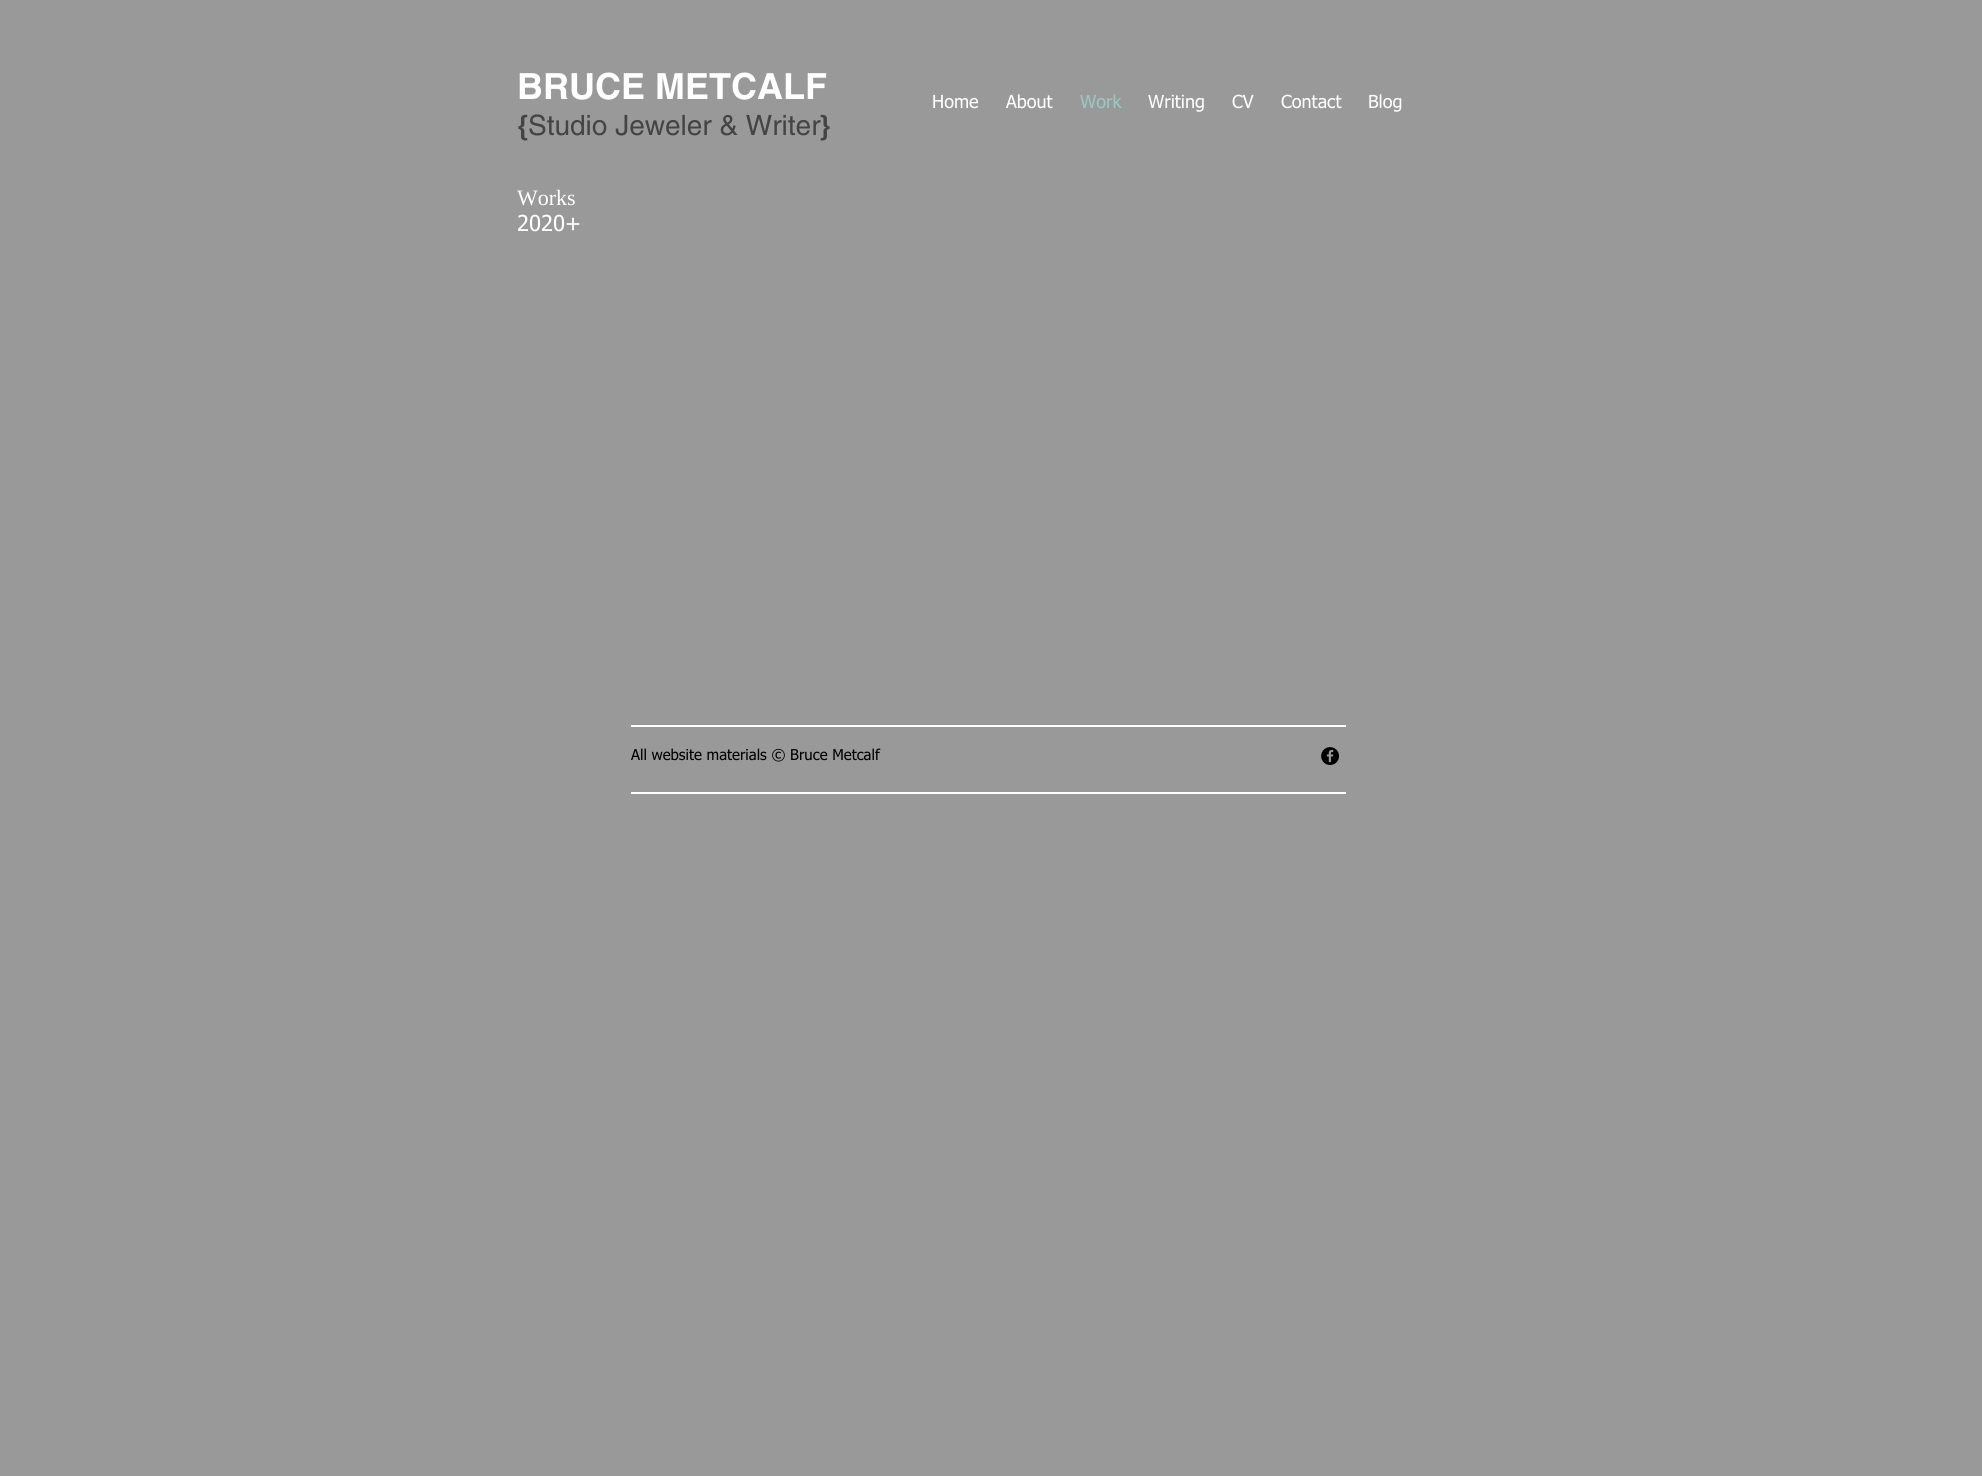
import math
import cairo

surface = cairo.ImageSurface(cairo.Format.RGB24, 1982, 1476)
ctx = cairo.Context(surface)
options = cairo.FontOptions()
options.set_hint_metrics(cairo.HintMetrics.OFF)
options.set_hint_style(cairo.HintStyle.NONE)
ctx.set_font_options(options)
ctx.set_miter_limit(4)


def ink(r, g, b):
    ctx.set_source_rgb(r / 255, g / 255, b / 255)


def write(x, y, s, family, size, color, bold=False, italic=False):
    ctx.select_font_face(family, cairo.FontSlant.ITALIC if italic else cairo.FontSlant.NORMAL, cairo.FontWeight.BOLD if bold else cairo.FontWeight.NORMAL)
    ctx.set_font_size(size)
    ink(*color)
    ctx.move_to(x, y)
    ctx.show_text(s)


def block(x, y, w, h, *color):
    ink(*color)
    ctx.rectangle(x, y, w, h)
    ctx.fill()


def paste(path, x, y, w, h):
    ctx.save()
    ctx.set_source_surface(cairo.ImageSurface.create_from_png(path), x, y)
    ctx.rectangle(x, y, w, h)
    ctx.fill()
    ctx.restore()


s1 = dict(family="helvetica", size=36, color=(255, 255, 255), bold=True)
s2 = dict(family="helvetica", size=28, color=(68, 68, 68), bold=True)
s3 = dict(family="helvetica", size=28, color=(68, 68, 68))
s4 = dict(family="tahoma", size=18, color=(255, 255, 255))
s5 = dict(family="tahoma", size=18, color=(153, 201, 193))
s6 = dict(family="Liberation Serif", size=22, color=(255, 255, 255))
s7 = dict(family="tahoma", size=22, color=(255, 255, 255))
s8 = dict(family="tahoma", size=15, color=(0, 0, 0))

ink(153, 153, 153)
ctx.paint()
write(517, 99, "BRUCE METCALF", **s1)
write(517, 135, "{", **s2)
write(528, 135, "Studio Jeweler & Writer", **s3)
write(820, 135, "}", **s2)
write(932, 108, "Home", **s4)
write(1006, 108, "About", **s4)
write(1080, 108, "Work", **s5)
write(1148, 108, "Writing", **s4)
write(1232, 108, "CV", **s4)
write(1281, 108, "Contact", **s4)
write(1368, 108, "Blog", **s4)
write(517, 205, "Works", **s6)
write(517, 231, "2020+", **s7)
block(631, 725, 715, 2, 255, 255, 255)
write(631, 760, "All website materials © Bruce Metcalf", **s8)
paste("pic1.png", 1321, 747, 18, 18)
block(631, 792, 715, 2, 255, 255, 255)
surface.write_to_png("screenshot.png")
